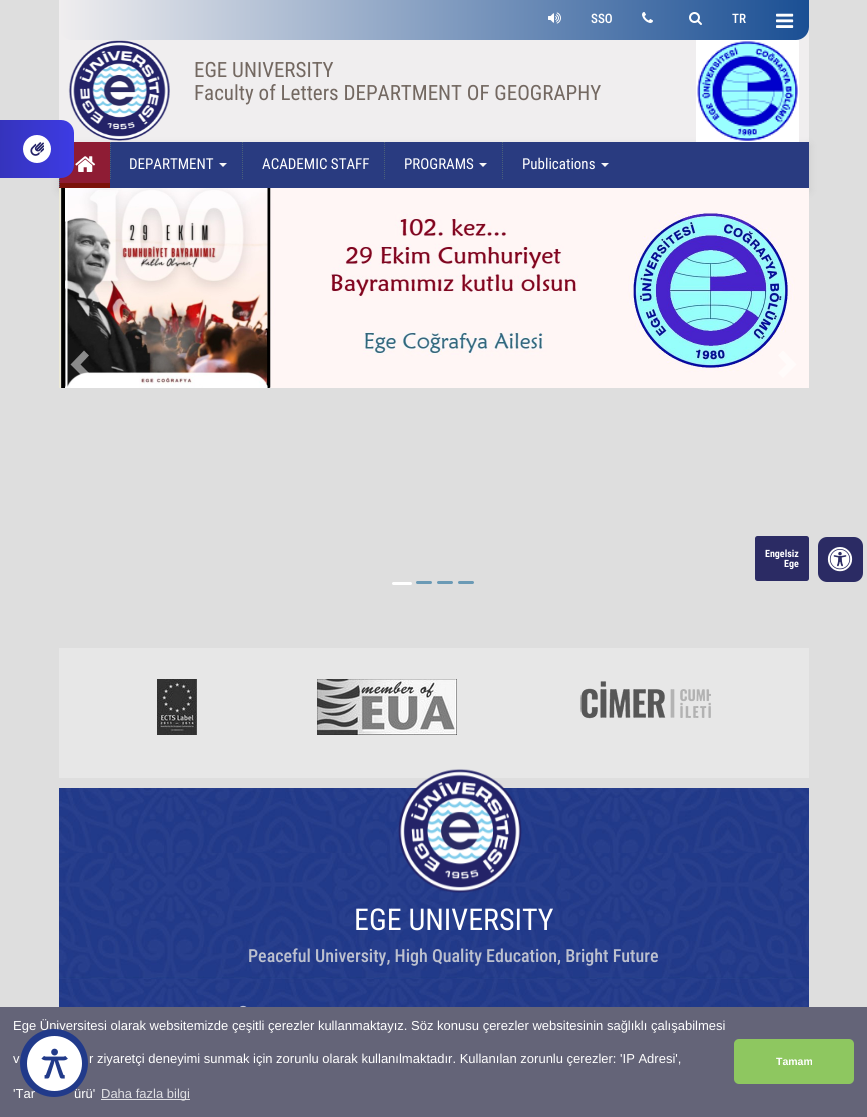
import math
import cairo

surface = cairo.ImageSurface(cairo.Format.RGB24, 867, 1117)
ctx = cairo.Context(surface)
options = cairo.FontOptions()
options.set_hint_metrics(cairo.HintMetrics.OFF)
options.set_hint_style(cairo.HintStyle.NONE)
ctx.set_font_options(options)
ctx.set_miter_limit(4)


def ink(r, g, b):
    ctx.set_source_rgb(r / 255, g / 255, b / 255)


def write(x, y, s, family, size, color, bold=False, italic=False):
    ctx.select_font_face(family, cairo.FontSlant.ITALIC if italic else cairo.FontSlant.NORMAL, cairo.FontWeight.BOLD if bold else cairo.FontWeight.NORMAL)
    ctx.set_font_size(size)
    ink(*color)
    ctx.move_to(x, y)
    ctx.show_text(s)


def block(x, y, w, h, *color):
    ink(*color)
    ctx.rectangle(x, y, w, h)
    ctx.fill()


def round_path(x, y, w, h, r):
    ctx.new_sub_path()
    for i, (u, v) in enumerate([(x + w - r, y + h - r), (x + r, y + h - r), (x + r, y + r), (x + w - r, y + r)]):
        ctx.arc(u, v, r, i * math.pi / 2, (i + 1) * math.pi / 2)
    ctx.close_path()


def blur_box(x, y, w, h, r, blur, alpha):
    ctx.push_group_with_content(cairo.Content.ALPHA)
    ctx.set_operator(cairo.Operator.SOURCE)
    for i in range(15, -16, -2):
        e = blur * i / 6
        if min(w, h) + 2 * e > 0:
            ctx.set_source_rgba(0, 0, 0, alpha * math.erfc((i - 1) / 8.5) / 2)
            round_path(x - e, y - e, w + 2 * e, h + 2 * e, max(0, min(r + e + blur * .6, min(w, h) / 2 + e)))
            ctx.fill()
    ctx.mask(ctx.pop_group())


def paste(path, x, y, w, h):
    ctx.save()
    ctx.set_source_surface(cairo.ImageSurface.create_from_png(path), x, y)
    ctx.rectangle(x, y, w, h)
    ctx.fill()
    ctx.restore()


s1 = dict(family="Roboto Condensed Medium", size=13, color=(255, 255, 255))
s2 = dict(family="Roboto Condensed", size=21, color=(115, 104, 97))
s3 = dict(family="Roboto Condensed", size=15, color=(255, 255, 255))
s4 = dict(family="Roboto Condensed", size=30, color=(255, 255, 255))
s5 = dict(family="Roboto Condensed Medium", size=18, color=(188, 192, 206))
s6 = dict(family="Roboto Condensed", size=10, color=(255, 255, 255), bold=True)
s7 = dict(family="Liberation Sans", size=13, color=(255, 255, 255))
s8 = dict(family="Liberation Sans", size=13, color=(224, 224, 228))
s9 = dict(family="Liberation Sans", size=10.5, color=(255, 255, 255), bold=True)

ink(222, 222, 222)
ctx.paint()
block(59, 27, 750, 115, 240, 238, 239)
ink(0, 0, 0)
blur_box(59, 145, 750, 46, 0, 4.5, 0.1)
paste("pic6.png", 68, 40, 102, 101)
block(59, 142, 51, 46, 142, 28, 52)
ink(123, 18, 10)
ctx.new_path()
ctx.move_to(110, 188)
ctx.line_to(59, 188)
ctx.line_to(60, 183)
ctx.line_to(110, 183)
ctx.close_path()
ctx.fill()
ctx.new_path()
ctx.move_to(59.5, 142)
ctx.line_to(59.5, 188)
ink(74, 96, 121)
ctx.set_line_width(1)
ctx.set_dash([1, 1])
ctx.stroke()
gradient = cairo.LinearGradient(-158, 148, 75, 150)
gradient.add_color_stop_rgba(0, 0.141, 0.137, 0.408, 1)
gradient.add_color_stop_rgba(0.99, 0.239, 0.231, 0.89, 1)
ctx.set_source(gradient)
round_path(-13, 120, 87, 58, 13)
ctx.fill()
ink(255, 255, 255)
ctx.arc(37, 149, 14, 0, 2 * math.pi)
ctx.fill()
paste("pic1.png", 30, 142, 14, 14)
gradient = cairo.LinearGradient(59, 20, 809, 20)
gradient.add_color_stop_rgba(0, 0.941, 0.933, 0.937, 1)
gradient.add_color_stop_rgba(1, 0.102, 0.31, 0.58, 1)
ctx.set_source(gradient)
ctx.new_path()
ctx.move_to(59, 0)
ctx.line_to(809, 0)
ctx.line_to(809, 27)
ctx.curve_to(809, 34, 803, 40, 796, 40)
ctx.line_to(72, 40)
ctx.curve_to(65, 40, 59, 34, 59, 27)
ctx.close_path()
ctx.fill()
paste("pic2.png", 548, 12, 13, 12)
write(591, 23, "SSO", **s1)
paste("pic3.png", 642, 12, 11, 11)
paste("pic4.png", 689, 12, 13, 13)
write(732, 23, "TR", **s1)
paste("pic5.png", 776, 13, 18, 15)
write(194, 77, "EGE UNIVERSITY", **s2)
write(194, 100, "Faculty of Letters DEPARTMENT OF GEOGRAPHY", **s2)
paste("pic7.png", 696, 40, 103, 102)
block(110, 142, 699, 46, 41, 59, 128)
paste("pic8.png", 75, 156, 21, 16)
ctx.new_path()
ctx.move_to(110.5, 142)
ctx.line_to(110.5, 180)
ink(74, 96, 121)
ctx.stroke()
write(129, 169, "DEPARTMENT", **s3)
ink(247, 247, 247)
ctx.new_path()
ctx.move_to(219, 163)
ctx.line_to(227, 163)
ctx.line_to(223, 167)
ctx.close_path()
ctx.fill()
ctx.new_path()
ctx.move_to(242.5, 142)
ctx.line_to(242.5, 180)
ink(74, 96, 121)
ctx.stroke()
write(262, 169, "ACADEMIC STAFF", **s3)
ctx.new_path()
ctx.move_to(384.5, 142)
ctx.line_to(384.5, 180)
ink(74, 96, 121)
ctx.stroke()
write(404, 169, "PROGRAMS", **s3)
ink(247, 247, 247)
ctx.new_path()
ctx.move_to(479, 163)
ctx.line_to(487, 163)
ctx.line_to(483, 167)
ctx.close_path()
ctx.fill()
ctx.new_path()
ctx.move_to(502.5, 142)
ctx.line_to(502.5, 180)
ink(74, 96, 121)
ctx.stroke()
write(522, 169, "Publications", **s3)
ink(247, 247, 247)
ctx.new_path()
ctx.move_to(601, 163)
ctx.line_to(609, 163)
ctx.line_to(605, 167)
ctx.close_path()
ctx.fill()
paste("pic9.png", 59, 188, 750, 200)
ink(255, 255, 255)
round_path(392, 582, 20, 3, 1.5)
ctx.fill()
ink(107, 154, 181)
round_path(416, 581, 16, 3, 1.5)
ctx.fill()
round_path(437, 581, 16, 3, 1.5)
ctx.fill()
round_path(458, 581, 16, 3, 1.5)
ctx.fill()
ctx.set_source_rgba(1, 1, 1, 0.5)
ctx.new_path()
ctx.move_to(89, 355.5)
ctx.line_to(80.5, 364.5)
ctx.line_to(89, 373)
ctx.line_to(84, 378)
ctx.line_to(70.5, 364.5)
ctx.line_to(84, 350.5)
ctx.close_path()
ctx.fill()
ink(255, 251, 250)
ctx.new_path()
ctx.move_to(796.5, 364.5)
ctx.line_to(783, 378)
ctx.line_to(778, 373)
ctx.line_to(786.5, 364.5)
ctx.line_to(778, 355.5)
ctx.line_to(783, 350.5)
ctx.close_path()
ctx.fill()
block(59, 648, 750, 130, 231, 231, 231)
paste("pic10.png", 157, 679, 40, 56)
paste("pic11.png", 317, 679, 140, 56)
paste("pic12.png", 580, 681, 131, 38)
paste("pic13.png", 59, 788, 750, 219)
paste("pic14.png", 398, 769, 124, 124)
write(354, 930, "EGE UNIVERSITY", **s4)
write(248, 962, "Peaceful University, High Quality Education, Bright Future", **s5)
paste("pic15.png", 240, 1005, 7, 2)
ink(43, 43, 100)
round_path(818, 537, 45, 45, 9)
ctx.fill()
round_path(755, 536, 54, 45, 2.5)
ctx.fill()
write(765, 557, "Engelsiz", **s6)
write(784, 567, "Ege", **s6)
paste("pic16.png", 827, 547, 26, 25)
block(0, 1007, 867, 110, 100, 100, 120)
write(13, 1030, "Ege Üniversitesi olarak websitemizde çeşitli çerezler kullanmaktayız. Söz konusu çerezler websitesinin sağlıklı çalışabilmesi", **s7)
write(13, 1063, "v", **s7)
write(89, 1063, "r ziyaretçi deneyimi sunmak için zorunlu olarak kullanılmaktadır. Kullanılan zorunlu çerezler: 'IP Adresi',", **s7)
write(13, 1098, "'Tar", **s7)
write(74, 1098, "ürü'", **s7)
block(101, 1099, 89, 1, 224, 224, 228)
write(101, 1098, "Daha fazla bilgi", **s8)
ink(142, 199, 96)
round_path(734, 1039, 120, 45, 5)
ctx.fill()
write(776, 1065, "Tamam", **s9)
ink(33, 58, 138)
ctx.new_path()
ctx.arc(54, 1063, 34, 0, 2 * math.pi)
ctx.fill()
paste("pic17.png", 27, 1036, 55, 55)
surface.write_to_png("screenshot.png")
